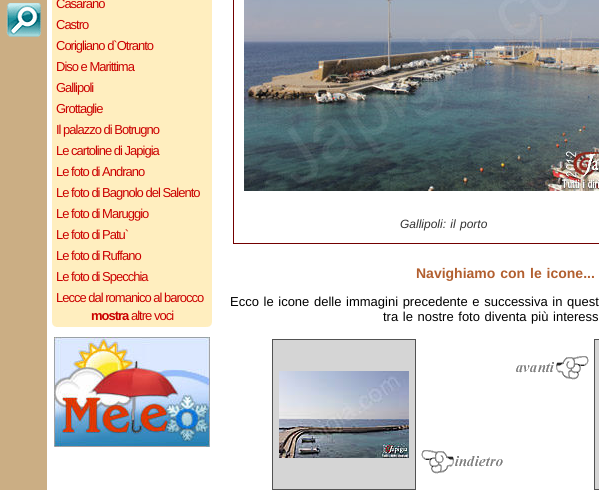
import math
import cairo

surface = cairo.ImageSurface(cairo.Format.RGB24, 599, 490)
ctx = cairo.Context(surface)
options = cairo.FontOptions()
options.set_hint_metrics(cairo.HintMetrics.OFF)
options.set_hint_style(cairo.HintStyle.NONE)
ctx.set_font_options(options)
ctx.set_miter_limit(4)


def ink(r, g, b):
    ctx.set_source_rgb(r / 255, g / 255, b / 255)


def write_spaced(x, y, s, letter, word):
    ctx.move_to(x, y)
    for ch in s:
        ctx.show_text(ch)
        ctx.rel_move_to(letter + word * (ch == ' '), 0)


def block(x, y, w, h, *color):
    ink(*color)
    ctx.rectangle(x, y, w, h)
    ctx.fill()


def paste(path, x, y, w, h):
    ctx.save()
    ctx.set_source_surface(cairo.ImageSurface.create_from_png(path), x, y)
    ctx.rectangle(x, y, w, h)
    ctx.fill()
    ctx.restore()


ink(203, 174, 132)
ctx.paint()
paste("pic1.png", 6, 3, 35, 34)
block(47, 0, 552, 490, 255, 255, 255)
block(52, 0, 160, 322, 255, 238, 191)
paste("pic2.png", 52, 322, 160, 5)
ctx.select_font_face("Liberation Sans")
ctx.set_font_size(13)
ink(203, 0, 0)
write_spaced(56, 8, "Casarano", -1, 0)
write_spaced(56, 29, "Castro", -1, 0)
write_spaced(56, 50, "Corigliano d`Otranto", -1, 0)
write_spaced(56, 71, "Diso e Marittima", -1, 0)
write_spaced(56, 92, "Gallipoli", -1, 0)
write_spaced(56, 113, "Grottaglie", -1, 0)
write_spaced(56, 134, "Il palazzo di Botrugno", -1, 0)
write_spaced(56, 155, "Le cartoline di Japigia", -1, 0)
write_spaced(56, 176, "Le foto di Andrano", -1, 0)
write_spaced(56, 197, "Le foto di Bagnolo del Salento", -1, 0)
write_spaced(56, 218, "Le foto di Maruggio", -1, 0)
write_spaced(56, 239, "Le foto di Patu`", -1, 0)
write_spaced(56, 260, "Le foto di Ruffano", -1, 0)
write_spaced(56, 281, "Le foto di Specchia", -1, 0)
write_spaced(56, 302, "Lecce dal romanico al barocco", -1, 0)
ctx.select_font_face("Liberation Sans", cairo.FontSlant.NORMAL, cairo.FontWeight.BOLD)
write_spaced(91, 320, "mostra", -1, 0)
ctx.select_font_face("Liberation Sans")
write_spaced(131, 320, "altre voci", -1, 0)
paste("pic3.png", 54, 337, 156, 110)
ctx.rectangle(233.5, -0.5, 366, 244)
ink(115, 0, 0)
ctx.set_line_width(1)
ctx.stroke()
paste("pic4.png", 244, 0, 355, 191)
ctx.select_font_face("Liberation Sans", cairo.FontSlant.ITALIC)
ctx.set_font_size(12)
ink(51, 51, 51)
write_spaced(400, 228, "Gallipoli: il porto", 0, 1)
ctx.select_font_face("Liberation Sans", cairo.FontSlant.NORMAL, cairo.FontWeight.BOLD)
ctx.set_font_size(14)
ink(178, 95, 47)
write_spaced(416, 278, "Navighiamo con le icone...", 0, 1)
ctx.select_font_face("Liberation Sans")
ctx.set_font_size(13)
ink(0, 0, 0)
write_spaced(230, 306, "Ecco le icone delle immagini precedente e successiva in quest", 0, 1)
write_spaced(383, 321, "tra le nostre foto diventa più interess", 0, 1)
ink(213, 213, 213)
ctx.rectangle(272.5, 339.5, 143, 150)
ctx.fill_preserve()
ink(82, 82, 82)
ctx.stroke()
paste("pic5.png", 279, 371, 130, 87)
paste("pic6.png", 421, 356, 168, 118)
ink(213, 213, 213)
ctx.rectangle(594.5, 339.5, 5, 150)
ctx.fill_preserve()
ink(82, 82, 82)
ctx.stroke()
surface.write_to_png("screenshot.png")
